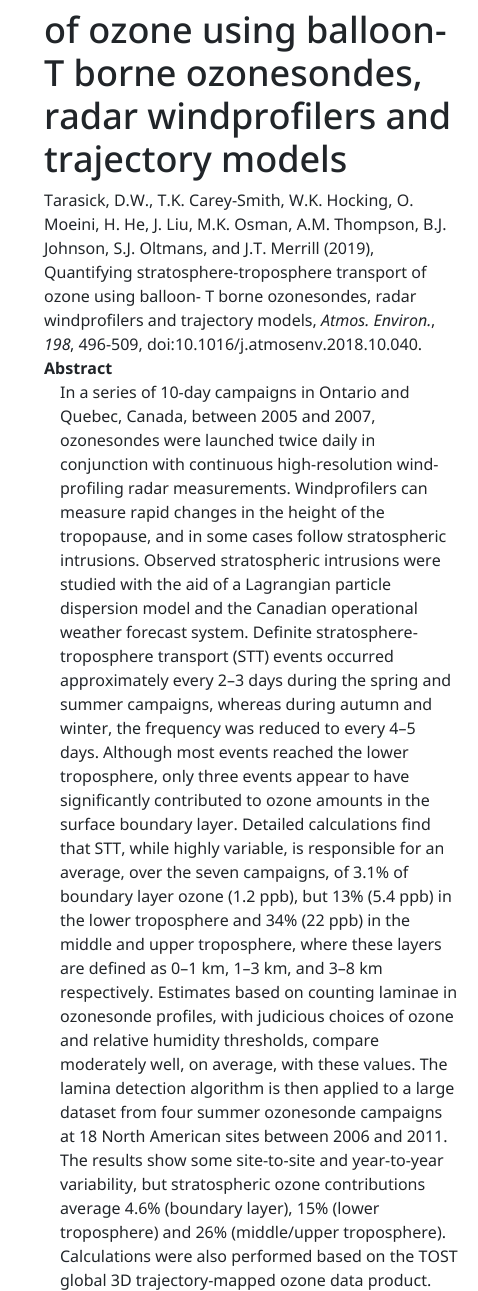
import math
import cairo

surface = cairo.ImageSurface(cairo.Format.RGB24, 478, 1291)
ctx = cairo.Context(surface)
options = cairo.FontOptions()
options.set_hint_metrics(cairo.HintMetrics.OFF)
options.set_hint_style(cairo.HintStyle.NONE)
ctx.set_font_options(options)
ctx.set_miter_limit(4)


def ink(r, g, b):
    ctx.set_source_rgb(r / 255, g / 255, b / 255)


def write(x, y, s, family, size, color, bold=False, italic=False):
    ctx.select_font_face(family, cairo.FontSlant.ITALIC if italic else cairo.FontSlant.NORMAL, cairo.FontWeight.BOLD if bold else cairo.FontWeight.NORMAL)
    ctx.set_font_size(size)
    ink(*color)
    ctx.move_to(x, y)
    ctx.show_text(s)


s1 = dict(family="Noto Sans Medium", size=36, color=(33, 37, 41))
s2 = dict(family="Noto Sans", size=16, color=(33, 37, 41))
s3 = dict(family="Noto Sans", size=16, color=(33, 37, 41), italic=True)
s4 = dict(family="Noto Sans", size=16, color=(33, 37, 41), bold=True)

ink(255, 255, 255)
ctx.paint()
write(44, 43, "of ozone using balloon-", **s1)
write(44, 86, "T borne ozonesondes,", **s1)
write(44, 129, "radar windprofilers and", **s1)
write(44, 172, "trajectory models", **s1)
write(44, 206, "Tarasick, D.W., T.K. Carey-Smith, W.K. Hocking, O.", **s2)
write(44, 230, "Moeini, H. He, J. Liu, M.K. Osman, A.M. Thompson, B.J.", **s2)
write(44, 254, "Johnson, S.J. Oltmans, and J.T. Merrill (2019),", **s2)
write(44, 278, "Quantifying stratosphere-troposphere transport of", **s2)
write(44, 302, "ozone using balloon- T borne ozonesondes, radar", **s2)
write(44, 326, "windprofilers and trajectory models,", **s2)
write(321, 326, "Atmos. Environ.", **s3)
write(431, 326, ",", **s2)
write(44, 350, "198", **s3)
write(70, 350, ", 496-509, doi:10.1016/j.atmosenv.2018.10.040.", **s2)
write(44, 374, "Abstract", **s4)
write(60, 398, "In a series of 10-day campaigns in Ontario and", **s2)
write(60, 422, "Quebec, Canada, between 2005 and 2007,", **s2)
write(60, 446, "ozonesondes were launched twice daily in", **s2)
write(60, 470, "conjunction with continuous high-resolution wind-", **s2)
write(60, 494, "profiling radar measurements. Windprofilers can", **s2)
write(60, 518, "measure rapid changes in the height of the", **s2)
write(60, 542, "tropopause, and in some cases follow stratospheric", **s2)
write(60, 566, "intrusions. Observed stratospheric intrusions were", **s2)
write(60, 590, "studied with the aid of a Lagrangian particle", **s2)
write(60, 614, "dispersion model and the Canadian operational", **s2)
write(60, 638, "weather forecast system. Definite stratosphere-", **s2)
write(60, 662, "troposphere transport (STT) events occurred", **s2)
write(60, 686, "approximately every 2–3 days during the spring and", **s2)
write(60, 710, "summer campaigns, whereas during autumn and", **s2)
write(60, 734, "winter, the frequency was reduced to every 4–5", **s2)
write(60, 758, "days. Although most events reached the lower", **s2)
write(60, 782, "troposphere, only three events appear to have", **s2)
write(60, 806, "significantly contributed to ozone amounts in the", **s2)
write(60, 830, "surface boundary layer. Detailed calculations find", **s2)
write(60, 854, "that STT, while highly variable, is responsible for an", **s2)
write(60, 878, "average, over the seven campaigns, of 3.1% of", **s2)
write(60, 902, "boundary layer ozone (1.2 ppb), but 13% (5.4 ppb) in", **s2)
write(60, 926, "the lower troposphere and 34% (22 ppb) in the", **s2)
write(60, 950, "middle and upper troposphere, where these layers", **s2)
write(60, 974, "are defined as 0–1 km, 1–3 km, and 3–8 km", **s2)
write(60, 998, "respectively. Estimates based on counting laminae in", **s2)
write(60, 1022, "ozonesonde profiles, with judicious choices of ozone", **s2)
write(60, 1046, "and relative humidity thresholds, compare", **s2)
write(60, 1070, "moderately well, on average, with these values. The", **s2)
write(60, 1094, "lamina detection algorithm is then applied to a large", **s2)
write(60, 1118, "dataset from four summer ozonesonde campaigns", **s2)
write(60, 1142, "at 18 North American sites between 2006 and 2011.", **s2)
write(60, 1166, "The results show some site-to-site and year-to-year", **s2)
write(60, 1190, "variability, but stratospheric ozone contributions", **s2)
write(60, 1214, "average 4.6% (boundary layer), 15% (lower", **s2)
write(60, 1238, "troposphere) and 26% (middle/upper troposphere).", **s2)
write(60, 1262, "Calculations were also performed based on the TOST", **s2)
write(60, 1286, "global 3D trajectory-mapped ozone data product.", **s2)
surface.write_to_png("screenshot.png")
